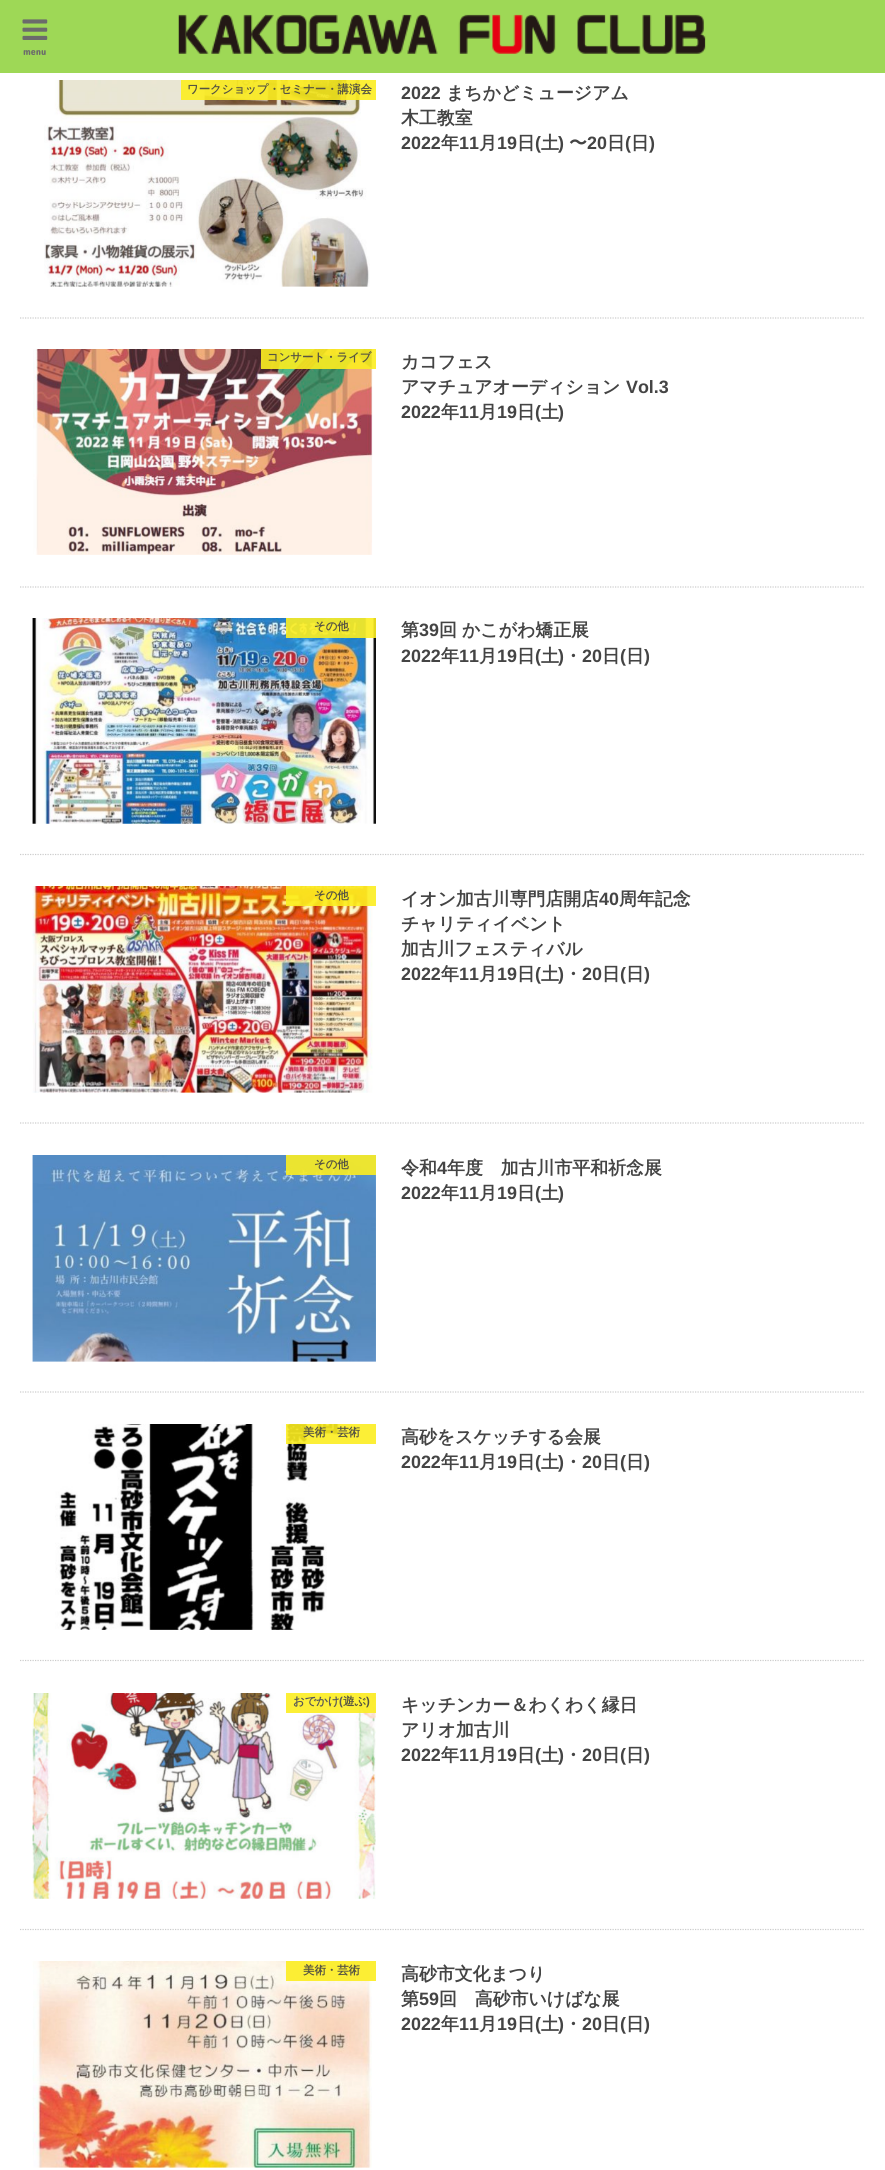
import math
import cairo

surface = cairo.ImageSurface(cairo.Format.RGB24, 885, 2170)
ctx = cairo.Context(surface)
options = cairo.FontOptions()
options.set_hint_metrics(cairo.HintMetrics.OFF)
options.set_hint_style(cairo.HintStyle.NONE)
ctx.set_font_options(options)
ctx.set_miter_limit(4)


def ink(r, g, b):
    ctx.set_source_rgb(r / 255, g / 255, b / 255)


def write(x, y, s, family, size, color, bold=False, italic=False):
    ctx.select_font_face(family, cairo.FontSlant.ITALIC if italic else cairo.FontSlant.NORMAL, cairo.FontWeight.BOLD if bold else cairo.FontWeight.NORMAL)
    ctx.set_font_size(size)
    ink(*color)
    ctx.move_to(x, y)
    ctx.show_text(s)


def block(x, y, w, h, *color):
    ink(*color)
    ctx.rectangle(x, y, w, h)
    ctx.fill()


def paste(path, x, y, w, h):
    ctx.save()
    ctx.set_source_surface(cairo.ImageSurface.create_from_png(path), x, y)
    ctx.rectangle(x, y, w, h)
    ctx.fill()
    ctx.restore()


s1 = dict(family="Concert One", size=10, color=(107, 107, 107))
s2 = dict(family="WenQuanYi Zen Hei", size=11.4, color=(86, 84, 66), bold=True)
s3 = dict(family="Liberation Sans", size=17.9, color=(68, 68, 68), bold=True)
s4 = dict(family="WenQuanYi Zen Hei", size=17.9, color=(68, 68, 68), bold=True)
s5 = dict(family="WenQuanYi Zen Hei", size=11.4, color=(87, 87, 87), bold=True)
s6 = dict(family="Liberation Sans", size=11.4, color=(87, 87, 87), bold=True)
s7 = dict(family="Liberation Sans", size=11.4, color=(86, 84, 66), bold=True)

ink(255, 255, 255)
ctx.paint()
block(0, 0, 885, 73, 158, 216, 86)
paste("pic1.png", 22, 19, 26, 21)
write(23, 55, "menu", **s1)
paste("pic2.png", 178, 14, 528, 40)
ctx.new_path()
ctx.move_to(20, 318)
ctx.line_to(865, 318)
ink(204, 204, 204)
ctx.set_line_width(1.2)
ctx.set_dash([1.25, 1.25])
ctx.stroke()
paste("pic3.png", 44, 80, 326, 207)
ctx.set_source_rgba(0.988, 0.933, 0.129, 0.9)
ctx.rectangle(181, 80, 195, 20)
ctx.fill()
write(187, 93, "ワークショップ・セミナー・講演会", **s2)
write(401, 99, "2022", **s3)
write(446, 99, "まちかどミュージアム", **s4)
write(401, 124, "木工教室", **s4)
write(401, 149, "2022", **s3)
write(441, 149, "年", **s4)
write(459, 149, "11", **s3)
write(479, 149, "月", **s4)
write(497, 149, "19", **s3)
write(517, 149, "日", **s4)
write(535, 149, "(", **s3)
write(541, 149, "土", **s4)
write(558, 149, ")", **s3)
write(569, 149, "〜", **s4)
write(587, 149, "20", **s3)
write(607, 149, "日", **s4)
write(625, 149, "(", **s3)
write(631, 149, "日", **s4)
write(649, 149, ")", **s3)
ctx.new_path()
ctx.move_to(20, 587)
ctx.line_to(865, 587)
ink(204, 204, 204)
ctx.stroke()
paste("pic4.png", 33, 349, 340, 206)
ctx.set_source_rgba(0.988, 0.933, 0.129, 0.9)
ctx.rectangle(261, 349, 115, 20)
ctx.fill()
write(267, 361, "コンサート・ライブ", **s2)
write(401, 368, "カコフェス", **s4)
write(401, 393, "アマチュアオーディション", **s4)
write(626, 393, "Vol.3", **s3)
write(401, 418, "2022", **s3)
write(441, 418, "年", **s4)
write(459, 418, "11", **s3)
write(479, 418, "月", **s4)
write(497, 418, "19", **s3)
write(517, 418, "日", **s4)
write(535, 418, "(", **s3)
write(541, 418, "土", **s4)
write(558, 418, ")", **s3)
ctx.new_path()
ctx.move_to(20, 854.5)
ctx.line_to(865, 854.5)
ink(204, 204, 204)
ctx.stroke()
paste("pic5.png", 32, 618, 344, 206)
ctx.set_source_rgba(0.988, 0.933, 0.129, 0.9)
ctx.rectangle(286, 618, 90, 20)
ctx.fill()
write(314, 630, "その他", **s2)
write(401, 636, "第", **s4)
write(419, 636, "39", **s3)
write(439, 636, "回", **s4)
write(462, 636, "かこがわ矯正展", **s4)
write(401, 662, "2022", **s3)
write(441, 662, "年", **s4)
write(459, 662, "11", **s3)
write(479, 662, "月", **s4)
write(497, 662, "19", **s3)
write(517, 662, "日", **s4)
write(535, 662, "(", **s3)
write(541, 662, "土", **s4)
write(558, 662, ")", **s3)
write(564, 662, "・", **s4)
write(582, 662, "20", **s3)
write(602, 662, "日", **s4)
write(620, 662, "(", **s3)
write(626, 662, "日", **s4)
write(644, 662, ")", **s3)
ctx.new_path()
ctx.move_to(20, 1123)
ctx.line_to(865, 1123)
ink(204, 204, 204)
ctx.stroke()
paste("pic6.png", 32, 886, 341, 207)
ctx.set_source_rgba(0.988, 0.933, 0.129, 0.9)
ctx.rectangle(286, 886, 90, 20)
ctx.fill()
write(314, 899, "その他", **s2)
write(401, 905, "イオン加古川専門店開店", **s4)
write(599, 905, "40", **s3)
write(619, 905, "周年記念", **s4)
write(401, 930, "チャリティイベント", **s4)
write(401, 955, "加古川フェスティバル", **s4)
write(401, 980, "2022", **s3)
write(441, 980, "年", **s4)
write(459, 980, "11", **s3)
write(479, 980, "月", **s4)
write(497, 980, "19", **s3)
write(517, 980, "日", **s4)
write(535, 980, "(", **s3)
write(541, 980, "土", **s4)
write(558, 980, ")", **s3)
write(564, 980, "・", **s4)
write(582, 980, "20", **s3)
write(602, 980, "日", **s4)
write(620, 980, "(", **s3)
write(626, 980, "日", **s4)
write(644, 980, ")", **s3)
ctx.new_path()
ctx.move_to(20, 1392)
ctx.line_to(865, 1392)
ink(204, 204, 204)
ctx.stroke()
paste("pic7.png", 32, 1155, 344, 207)
ctx.set_source_rgba(0.988, 0.933, 0.129, 0.9)
ctx.rectangle(286, 1155, 90, 20)
ctx.fill()
write(314, 1168, "その他", **s2)
write(401, 1174, "令和", **s4)
write(437, 1174, "4", **s3)
write(447, 1174, "年度　加古川市平和祈念展", **s4)
write(401, 1199, "2022", **s3)
write(441, 1199, "年", **s4)
write(459, 1199, "11", **s3)
write(479, 1199, "月", **s4)
write(497, 1199, "19", **s3)
write(517, 1199, "日", **s4)
write(535, 1199, "(", **s3)
write(541, 1199, "土", **s4)
write(558, 1199, ")", **s3)
ctx.new_path()
ctx.move_to(20, 1660.5)
ctx.line_to(865, 1660.5)
ink(204, 204, 204)
ctx.stroke()
paste("pic8.png", 55, 1424, 284, 206)
ctx.set_source_rgba(0.988, 0.933, 0.129, 0.9)
ctx.rectangle(286, 1424, 90, 20)
ctx.fill()
write(303, 1436, "美術・芸術", **s2)
write(401, 1443, "高砂をスケッチする会展", **s4)
write(401, 1468, "2022", **s3)
write(441, 1468, "年", **s4)
write(459, 1468, "11", **s3)
write(479, 1468, "月", **s4)
write(497, 1468, "19", **s3)
write(517, 1468, "日", **s4)
write(535, 1468, "(", **s3)
write(541, 1468, "土", **s4)
write(558, 1468, ")", **s3)
write(564, 1468, "・", **s4)
write(582, 1468, "20", **s3)
write(602, 1468, "日", **s4)
write(620, 1468, "(", **s3)
write(626, 1468, "日", **s4)
write(644, 1468, ")", **s3)
ctx.new_path()
ctx.move_to(20, 1929.5)
ctx.line_to(865, 1929.5)
ink(204, 204, 204)
ctx.stroke()
paste("pic9.png", 32, 1693, 344, 206)
ctx.set_source_rgba(0.988, 0.933, 0.129, 0.9)
ctx.rectangle(286, 1693, 90, 20)
ctx.fill()
write(293, 1705, "おでかけ", **s5)
write(339, 1705, "(", **s6)
write(343, 1705, "遊ぶ", **s2)
write(366, 1705, ")", **s7)
write(401, 1711, "キッチンカー＆わくわく縁日", **s4)
write(401, 1736, "アリオ加古川", **s4)
write(401, 1761, "2022", **s3)
write(441, 1761, "年", **s4)
write(459, 1761, "11", **s3)
write(479, 1761, "月", **s4)
write(497, 1761, "19", **s3)
write(517, 1761, "日", **s4)
write(535, 1761, "(", **s3)
write(541, 1761, "土", **s4)
write(558, 1761, ")", **s3)
write(564, 1761, "・", **s4)
write(582, 1761, "20", **s3)
write(602, 1761, "日", **s4)
write(620, 1761, "(", **s3)
write(626, 1761, "日", **s4)
write(644, 1761, ")", **s3)
paste("pic10.png", 32, 1961, 340, 207)
ctx.set_source_rgba(0.988, 0.933, 0.129, 0.9)
ctx.rectangle(286, 1961, 90, 20)
ctx.fill()
write(303, 1974, "美術・芸術", **s2)
write(401, 1980, "高砂市文化まつり", **s4)
write(401, 2005, "第", **s4)
write(419, 2005, "59", **s3)
write(439, 2005, "回　高砂市いけばな展", **s4)
write(401, 2030, "2022", **s3)
write(441, 2030, "年", **s4)
write(459, 2030, "11", **s3)
write(479, 2030, "月", **s4)
write(497, 2030, "19", **s3)
write(517, 2030, "日", **s4)
write(535, 2030, "(", **s3)
write(541, 2030, "土", **s4)
write(558, 2030, ")", **s3)
write(564, 2030, "・", **s4)
write(582, 2030, "20", **s3)
write(602, 2030, "日", **s4)
write(620, 2030, "(", **s3)
write(626, 2030, "日", **s4)
write(644, 2030, ")", **s3)
surface.write_to_png("screenshot.png")
